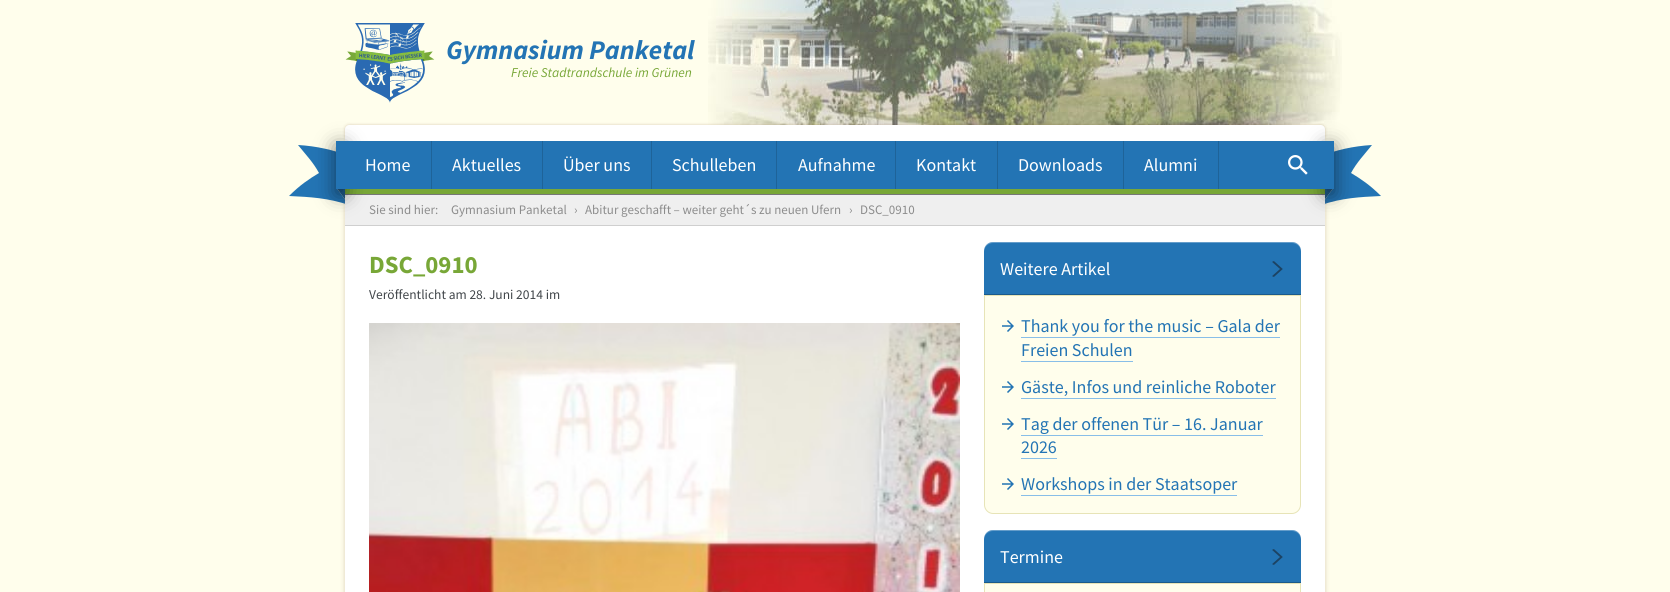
import math
import cairo

surface = cairo.ImageSurface(cairo.Format.RGB24, 1670, 592)
ctx = cairo.Context(surface)
options = cairo.FontOptions()
options.set_hint_metrics(cairo.HintMetrics.OFF)
options.set_hint_style(cairo.HintStyle.NONE)
ctx.set_font_options(options)
ctx.set_miter_limit(4)


def ink(r, g, b):
    ctx.set_source_rgb(r / 255, g / 255, b / 255)


def write(x, y, s, family, size, color, bold=False, italic=False):
    ctx.select_font_face(family, cairo.FontSlant.ITALIC if italic else cairo.FontSlant.NORMAL, cairo.FontWeight.BOLD if bold else cairo.FontWeight.NORMAL)
    ctx.set_font_size(size)
    ink(*color)
    ctx.move_to(x, y)
    ctx.show_text(s)


def block(x, y, w, h, *color):
    ink(*color)
    ctx.rectangle(x, y, w, h)
    ctx.fill()


def round_path(x, y, w, h, r):
    ctx.new_sub_path()
    for i, (u, v) in enumerate([(x + w - r, y + h - r), (x + r, y + h - r), (x + r, y + r), (x + w - r, y + r)]):
        ctx.arc(u, v, r, i * math.pi / 2, (i + 1) * math.pi / 2)
    ctx.close_path()


def blur_box(x, y, w, h, r, blur, alpha):
    ctx.push_group_with_content(cairo.Content.ALPHA)
    ctx.set_operator(cairo.Operator.SOURCE)
    for i in range(15, -16, -2):
        e = blur * i / 6
        if min(w, h) + 2 * e > 0:
            ctx.set_source_rgba(0, 0, 0, alpha * math.erfc((i - 1) / 8.5) / 2)
            round_path(x - e, y - e, w + 2 * e, h + 2 * e, max(0, min(r + e + blur * .6, min(w, h) / 2 + e)))
            ctx.fill()
    ctx.mask(ctx.pop_group())


def paste(path, x, y, w, h):
    ctx.save()
    ctx.set_source_surface(cairo.ImageSurface.create_from_png(path), x, y)
    ctx.rectangle(x, y, w, h)
    ctx.fill()
    ctx.restore()


s1 = dict(family="Source Sans Pro", size=27, color=(35, 116, 180), bold=True, italic=True)
s2 = dict(family="Source Sans Pro", size=13.5, color=(120, 167, 55), italic=True)
s3 = dict(family="Source Sans Pro", size=18, color=(255, 255, 255))
s4 = dict(family="Source Sans Pro", size=13, color=(140, 140, 140))
s5 = dict(family="Source Sans Pro", size=24.75, color=(120, 167, 55), bold=True)
s6 = dict(family="Source Sans Pro", size=13.5, color=(64, 69, 73))
s7 = dict(family="Source Sans Pro", size=18, color=(35, 116, 180))

ink(255, 254, 236)
ctx.paint()
paste("pic1.png", 708, 0, 634, 138)
paste("pic2.png", 345, 23, 90, 80)
write(446, 59, "Gymnasium Panketal", **s1)
write(511, 77, "Freie Stadtrandschule im Grünen", **s2)
ink(35, 116, 180)
ctx.new_path()
ctx.move_to(336, 187)
ctx.line_to(349, 205)
ctx.curve_to(328, 198, 311, 197, 289, 196)
ctx.curve_to(300, 185, 309, 179, 319, 173)
ctx.curve_to(313, 162, 306, 155, 298, 145)
ctx.curve_to(316, 146, 334, 150, 349, 156)
ctx.close_path()
ctx.fill()
ctx.new_path()
ctx.move_to(1321, 156)
ctx.curve_to(1336, 150, 1354, 146, 1372, 145)
ctx.curve_to(1364, 155, 1357, 162, 1351, 173)
ctx.curve_to(1361, 179, 1370, 185, 1381, 196)
ctx.curve_to(1359, 197, 1342, 198, 1321, 205)
ctx.line_to(1334, 187)
ctx.close_path()
ctx.fill()
ink(106, 58, 15)
blur_box(345, 125, 980, 16, 4, 1.5, 0.25)
ink(255, 255, 255)
ctx.new_path()
ctx.move_to(349, 125)
ctx.line_to(1321, 125)
ctx.curve_to(1323, 125, 1325, 127, 1325, 129)
ctx.line_to(1325, 141)
ctx.line_to(345, 141)
ctx.line_to(345, 129)
ctx.curve_to(345, 127, 347, 125, 349, 125)
ctx.close_path()
ctx.fill()
ink(32, 97, 148)
ctx.new_path()
ctx.move_to(336, 187)
ctx.line_to(349, 205)
ctx.line_to(349, 156)
ctx.close_path()
ctx.fill()
ctx.new_path()
ctx.move_to(1321, 156)
ctx.line_to(1321, 205)
ctx.line_to(1334, 187)
ctx.close_path()
ctx.fill()
ink(106, 58, 15)
blur_box(345, 194, 980, 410, 4, 2.5, 0.25)
block(432, 141, 839, 48, 35, 116, 180)
block(345, 189, 980, 5, 120, 167, 55)
block(345, 195, 980, 30, 239, 239, 239)
block(345, 194, 980, 1, 119, 119, 119)
ink(0, 0, 0)
blur_box(336, 146, 9, 48, 0, 10, 0.5)
block(336, 141, 95, 48, 35, 116, 180)
ink(0, 0, 0)
blur_box(1325, 146, 9, 48, 0, 10, 0.5)
block(1271, 141, 63, 48, 35, 116, 180)
block(431, 141, 1, 48, 30, 99, 153)
write(365, 171, "Home", **s3)
block(542, 141, 1, 48, 30, 99, 153)
write(452, 171, "Aktuelles", **s3)
block(651, 141, 1, 48, 30, 99, 153)
write(563, 171, "Über uns", **s3)
block(776, 141, 1, 48, 30, 99, 153)
write(672, 171, "Schulleben", **s3)
block(895, 141, 1, 48, 30, 99, 153)
write(798, 171, "Aufnahme", **s3)
block(997, 141, 1, 48, 30, 99, 153)
write(916, 171, "Kontakt", **s3)
block(1123, 141, 1, 48, 30, 99, 153)
write(1018, 171, "Downloads", **s3)
block(1218, 141, 1, 48, 30, 99, 153)
write(1144, 171, "Alumni", **s3)
paste("pic3.png", 1288, 155, 20, 20)
block(345, 226, 980, 366, 255, 255, 255)
block(345, 225, 980, 1, 207, 207, 207)
write(369, 214, "Sie sind hier:", **s4)
write(451, 214, "Gymnasium Panketal", **s4)
write(574, 214, "›", **s4)
write(585, 214, "Abitur geschafft – weiter geht´s zu neuen Ufern", **s4)
write(849, 214, "›", **s4)
write(860, 214, "DSC_0910", **s4)
write(369, 273, "DSC_0910", **s5)
write(369, 299, "Veröffentlicht am 28. Juni 2014 im", **s6)
paste("pic4.png", 369, 323, 591, 269)
ink(35, 116, 180)
ctx.new_path()
ctx.move_to(993, 242)
ctx.line_to(1292, 242)
ctx.curve_to(1297, 242, 1301, 246, 1301, 251)
ctx.line_to(1301, 295)
ctx.line_to(984, 295)
ctx.line_to(984, 251)
ctx.curve_to(984, 246, 988, 242, 993, 242)
ctx.close_path()
ctx.fill()
paste("pic5.png", 1272, 261, 11, 16)
ctx.set_source_rgba(1, 1, 1, 0.3)
ctx.new_path()
ctx.move_to(993, 243)
ctx.line_to(1292, 243)
ctx.curve_to(1297, 243, 1301, 247, 1301, 252)
ctx.line_to(1301, 251)
ctx.curve_to(1301, 246, 1297, 242, 1292, 242)
ctx.line_to(993, 242)
ctx.curve_to(988, 242, 984, 246, 984, 251)
ctx.line_to(984, 252)
ctx.curve_to(984, 247, 988, 243, 993, 243)
ctx.close_path()
ctx.fill()
block(984, 294, 317, 1, 27, 90, 140)
write(1000, 275, "Weitere Artikel", **s3)
ink(255, 254, 236)
ctx.new_path()
ctx.move_to(984.5, 295.5)
ctx.line_to(1300.5, 295.5)
ctx.line_to(1300.5, 505)
ctx.curve_to(1300.5, 509.5, 1296.5, 513.5, 1292, 513.5)
ctx.line_to(993, 513.5)
ctx.curve_to(988.5, 513.5, 984.5, 509.5, 984.5, 505)
ctx.close_path()
ctx.fill_preserve()
ink(231, 228, 183)
ctx.set_line_width(1)
ctx.stroke()
paste("pic6.png", 1002, 320, 12, 12)
write(1021, 332, "Thank you for the music – Gala der", **s7)
block(1021, 337, 259, 1, 136, 190, 232)
write(1021, 356, "Freien Schulen", **s7)
block(1021, 361, 112, 1, 136, 190, 232)
paste("pic6.png", 1002, 381, 12, 12)
write(1021, 393, "Gäste, Infos und reinliche Roboter", **s7)
block(1021, 398, 255, 1, 136, 190, 232)
paste("pic6.png", 1002, 418, 12, 12)
write(1021, 430, "Tag der offenen Tür – 16. Januar", **s7)
block(1021, 435, 242, 1, 136, 190, 232)
write(1021, 453, "2026", **s7)
block(1021, 458, 36, 1, 136, 190, 232)
paste("pic6.png", 1002, 478, 12, 12)
write(1021, 490, "Workshops in der Staatsoper", **s7)
block(1021, 495, 216, 1, 136, 190, 232)
ink(35, 116, 180)
ctx.new_path()
ctx.move_to(993, 530)
ctx.line_to(1292, 530)
ctx.curve_to(1297, 530, 1301, 534, 1301, 539)
ctx.line_to(1301, 583)
ctx.line_to(984, 583)
ctx.line_to(984, 539)
ctx.curve_to(984, 534, 988, 530, 993, 530)
ctx.close_path()
ctx.fill()
paste("pic5.png", 1272, 549, 11, 16)
ctx.set_source_rgba(1, 1, 1, 0.3)
ctx.new_path()
ctx.move_to(993, 531)
ctx.line_to(1292, 531)
ctx.curve_to(1297, 531, 1301, 535, 1301, 540)
ctx.line_to(1301, 539)
ctx.curve_to(1301, 534, 1297, 530, 1292, 530)
ctx.line_to(993, 530)
ctx.curve_to(988, 530, 984, 534, 984, 539)
ctx.line_to(984, 540)
ctx.curve_to(984, 535, 988, 531, 993, 531)
ctx.close_path()
ctx.fill()
block(984, 582, 317, 1, 27, 90, 140)
write(1000, 563, "Termine", **s3)
ink(255, 254, 236)
ctx.rectangle(984.5, 583.5, 316, 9)
ctx.fill_preserve()
ink(231, 228, 183)
ctx.stroke()
surface.write_to_png("screenshot.png")
